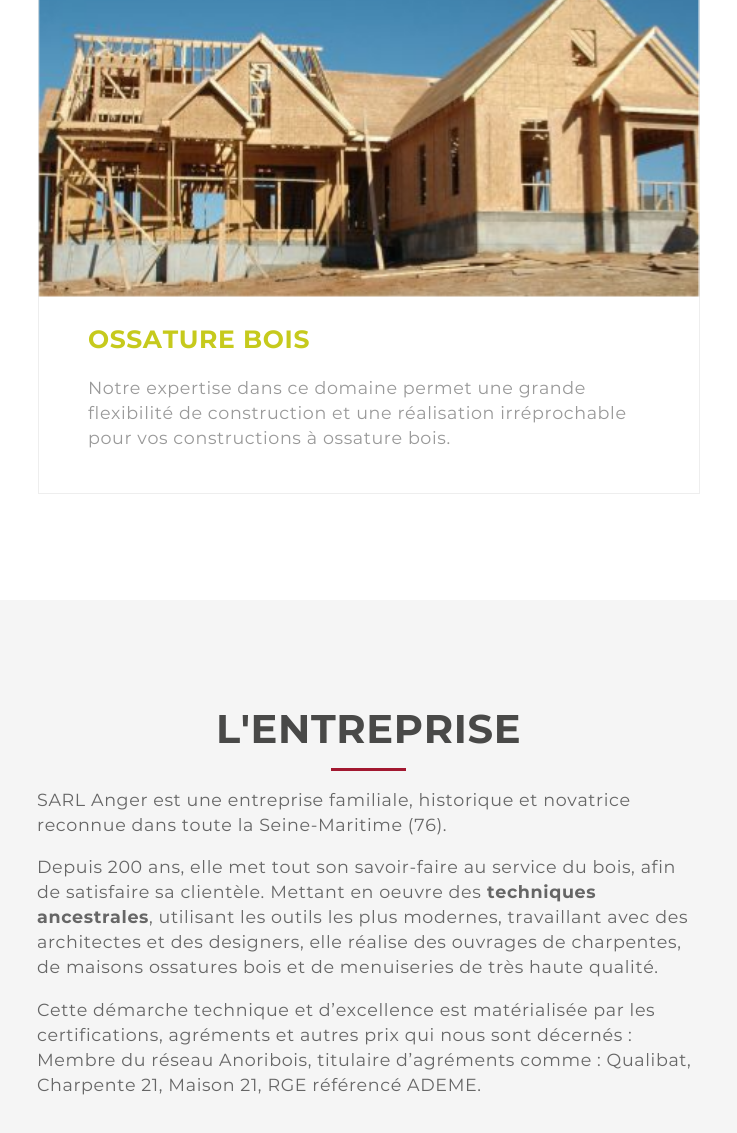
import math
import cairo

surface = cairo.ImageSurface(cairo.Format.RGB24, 737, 1133)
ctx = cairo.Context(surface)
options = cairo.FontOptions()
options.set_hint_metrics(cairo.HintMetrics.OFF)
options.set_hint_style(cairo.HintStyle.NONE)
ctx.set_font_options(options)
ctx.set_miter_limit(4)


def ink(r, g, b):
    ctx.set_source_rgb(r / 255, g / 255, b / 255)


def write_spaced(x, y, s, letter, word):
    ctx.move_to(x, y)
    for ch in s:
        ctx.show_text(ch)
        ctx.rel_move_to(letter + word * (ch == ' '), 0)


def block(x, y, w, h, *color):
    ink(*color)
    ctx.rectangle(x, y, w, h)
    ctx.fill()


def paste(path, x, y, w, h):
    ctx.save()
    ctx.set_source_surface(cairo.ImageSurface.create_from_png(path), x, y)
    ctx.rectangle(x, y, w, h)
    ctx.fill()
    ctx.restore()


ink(255, 255, 255)
ctx.paint()
ctx.rectangle(38.5, -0.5, 661, 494)
ink(238, 238, 238)
ctx.set_line_width(1)
ctx.stroke()
paste("pic1.png", 38, 0, 662, 297)
ctx.select_font_face("Montserrat", cairo.FontSlant.NORMAL, cairo.FontWeight.BOLD)
ctx.set_font_size(25)
ink(198, 202, 29)
write_spaced(88, 348, "OSSATURE BOIS", 0.62, 0)
ctx.select_font_face("Montserrat")
ctx.set_font_size(17.5)
ink(153, 153, 153)
write_spaced(88, 394, "Notre expertise dans ce domaine permet une grande", 0.62, 0)
write_spaced(88, 419, "flexibilité de construction et une réalisation irréprochable", 0.62, 0)
write_spaced(88, 444, "pour vos constructions à ossature bois.", 0.62, 0)
block(0, 600, 737, 533, 245, 245, 245)
ctx.select_font_face("Montserrat", cairo.FontSlant.NORMAL, cairo.FontWeight.BOLD)
ctx.set_font_size(40)
ink(73, 73, 72)
write_spaced(216, 743, "L'ENTREPRISE", 0.62, 0)
block(331, 768, 75, 3, 162, 24, 48)
ctx.select_font_face("Montserrat")
ctx.set_font_size(17.5)
ink(102, 102, 102)
write_spaced(37, 806, "SARL Anger est une entreprise familiale, historique et novatrice", 0.62, 0)
write_spaced(37, 831, "reconnue dans toute la Seine-Maritime (76).", 0.62, 0)
write_spaced(37, 873, "Depuis 200 ans, elle met tout son savoir-faire au service du bois, afin", 0.62, 0)
write_spaced(37, 898, "de satisfaire sa clientèle. Mettant en oeuvre des", 0.62, 0)
ctx.select_font_face("Montserrat", cairo.FontSlant.NORMAL, cairo.FontWeight.BOLD)
write_spaced(487, 898, "techniques", 0.62, 0)
write_spaced(37, 923, "ancestrales", 0.62, 0)
ctx.select_font_face("Montserrat")
write_spaced(149, 923, ", utilisant les outils les plus modernes, travaillant avec des", 0.62, 0)
write_spaced(37, 948, "architectes et des designers, elle réalise des ouvrages de charpentes,", 0.62, 0)
write_spaced(37, 973, "de maisons ossatures bois et de menuiseries de très haute qualité.", 0.62, 0)
write_spaced(37, 1016, "Cette démarche technique et d’excellence est matérialisée par les", 0.62, 0)
write_spaced(37, 1041, "certifications, agréments et autres prix qui nous sont décernés :", 0.62, 0)
write_spaced(37, 1066, "Membre du réseau Anoribois, titulaire d’agréments comme : Qualibat,", 0.62, 0)
write_spaced(37, 1091, "Charpente 21, Maison 21, RGE référencé ADEME.", 0.62, 0)
surface.write_to_png("screenshot.png")
